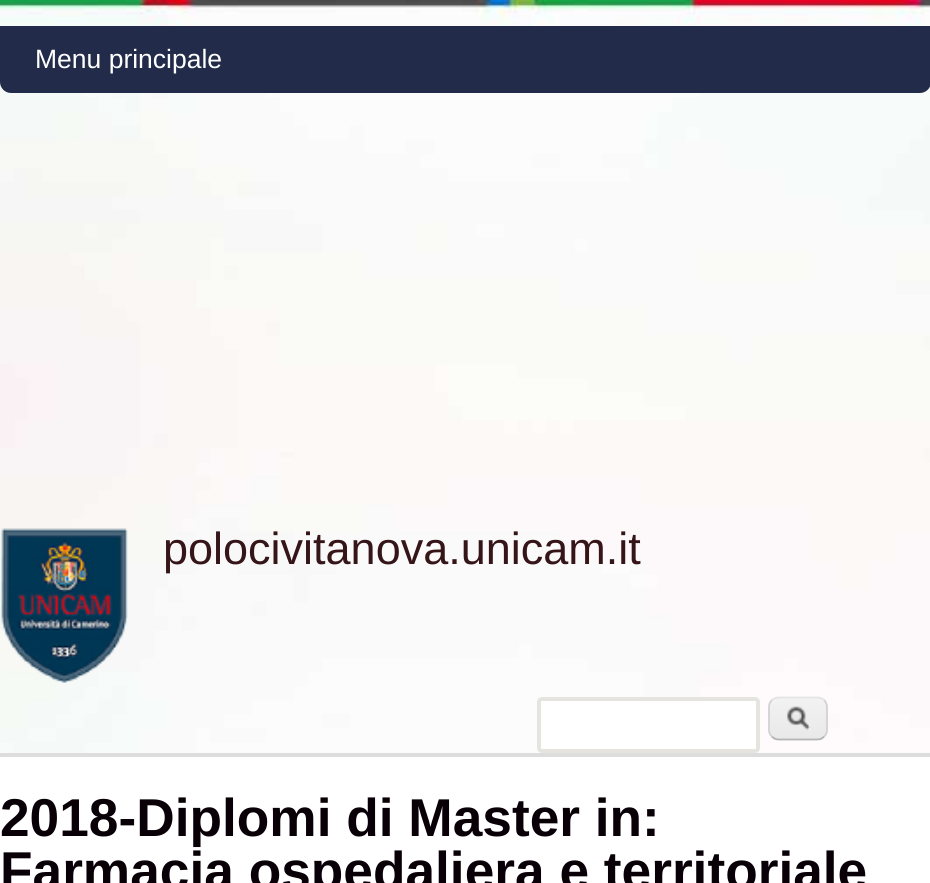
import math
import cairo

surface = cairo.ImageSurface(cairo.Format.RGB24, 930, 883)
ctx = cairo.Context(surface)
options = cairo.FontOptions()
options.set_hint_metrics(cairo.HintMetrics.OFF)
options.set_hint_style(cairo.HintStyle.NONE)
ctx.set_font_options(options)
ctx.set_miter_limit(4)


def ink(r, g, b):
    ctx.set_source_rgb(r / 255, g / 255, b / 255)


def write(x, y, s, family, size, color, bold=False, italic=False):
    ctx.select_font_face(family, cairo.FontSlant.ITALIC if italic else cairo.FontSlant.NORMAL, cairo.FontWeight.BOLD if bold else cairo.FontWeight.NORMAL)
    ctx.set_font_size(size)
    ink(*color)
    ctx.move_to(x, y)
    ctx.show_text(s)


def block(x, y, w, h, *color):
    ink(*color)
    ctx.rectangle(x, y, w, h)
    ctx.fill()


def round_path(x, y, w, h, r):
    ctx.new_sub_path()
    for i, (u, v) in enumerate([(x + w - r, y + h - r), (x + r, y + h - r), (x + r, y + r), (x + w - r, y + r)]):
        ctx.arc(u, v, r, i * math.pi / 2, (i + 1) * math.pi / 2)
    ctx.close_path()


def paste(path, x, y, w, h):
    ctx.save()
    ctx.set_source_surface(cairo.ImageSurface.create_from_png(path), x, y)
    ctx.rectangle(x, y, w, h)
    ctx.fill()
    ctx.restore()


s1 = dict(family="Liberation Sans", size=26.5, color=(255, 255, 255))
s2 = dict(family="Liberation Sans", size=45, color=(54, 21, 25))
s3 = dict(family="Liberation Sans", size=53.25, color=(8, 0, 6), bold=True)

ink(255, 255, 255)
ctx.paint()
paste("pic1.png", 0, 0, 930, 753)
ink(34, 44, 74)
ctx.new_path()
ctx.move_to(0, 26)
ctx.line_to(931, 26)
ctx.line_to(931, 82)
ctx.curve_to(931, 88, 926, 93, 920, 93)
ctx.line_to(11, 93)
ctx.curve_to(5, 93, 0, 88, 0, 82)
ctx.close_path()
ctx.fill()
write(35, 68, "Menu principale", **s1)
paste("pic2.png", 1, 528, 127, 155)
write(163, 564, "polocivitanova.unicam.it", **s2)
ink(255, 255, 255)
round_path(539, 699, 219, 52, 3)
ctx.fill_preserve()
ink(230, 228, 222)
ctx.set_line_width(4)
ctx.stroke()
paste("pic3.png", 768, 698, 60, 42)
ctx.new_path()
ctx.move_to(772, 700)
ctx.curve_to(773.5, 698.5, 776, 697.5, 779, 697.5)
ctx.line_to(817, 697.5)
ctx.curve_to(820, 697.5, 822.5, 698.5, 824, 700)
ink(228, 228, 228)
ctx.set_line_width(1.8)
ctx.stroke()
ctx.new_path()
ctx.move_to(824, 700)
ctx.curve_to(826, 702, 827, 704.5, 827, 707)
ctx.line_to(827, 730)
ctx.curve_to(827, 732.5, 826, 735, 824, 736.5)
ink(210, 210, 210)
ctx.stroke()
ctx.new_path()
ctx.move_to(824, 736.5)
ctx.curve_to(822.5, 738.5, 820, 739.5, 817, 739.5)
ctx.line_to(779, 739.5)
ctx.curve_to(776, 739.5, 773.5, 738.5, 772, 736.5)
ink(180, 180, 180)
ctx.stroke()
ctx.new_path()
ctx.move_to(772, 736.5)
ctx.curve_to(770, 735, 769, 732.5, 769, 730)
ctx.line_to(769, 707)
ctx.curve_to(769, 704.5, 770, 702, 772, 700)
ink(210, 210, 210)
ctx.stroke()
block(0, 753, 930, 4, 221, 221, 221)
write(0, 836, "2018-Diplomi di Master in:", **s3)
write(0, 889, "Farmacia ospedaliera e territoriale", **s3)
surface.write_to_png("screenshot.png")
